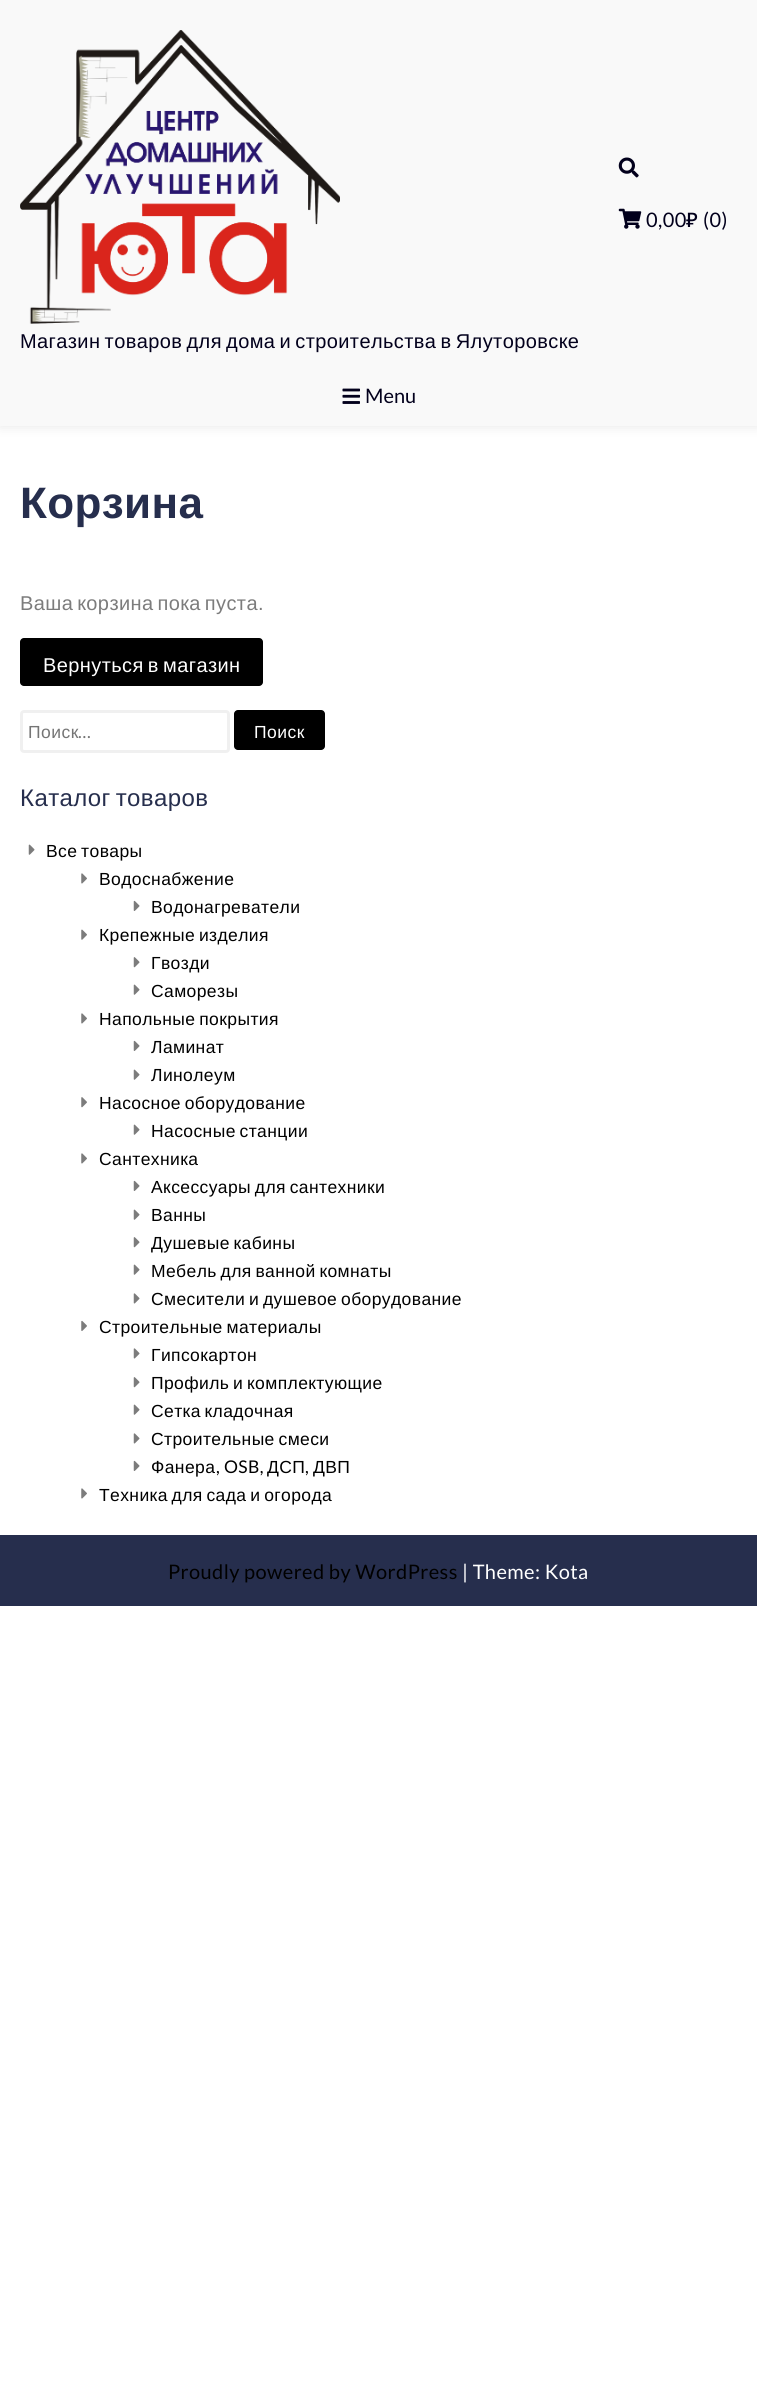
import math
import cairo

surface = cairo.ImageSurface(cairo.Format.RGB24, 757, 2396)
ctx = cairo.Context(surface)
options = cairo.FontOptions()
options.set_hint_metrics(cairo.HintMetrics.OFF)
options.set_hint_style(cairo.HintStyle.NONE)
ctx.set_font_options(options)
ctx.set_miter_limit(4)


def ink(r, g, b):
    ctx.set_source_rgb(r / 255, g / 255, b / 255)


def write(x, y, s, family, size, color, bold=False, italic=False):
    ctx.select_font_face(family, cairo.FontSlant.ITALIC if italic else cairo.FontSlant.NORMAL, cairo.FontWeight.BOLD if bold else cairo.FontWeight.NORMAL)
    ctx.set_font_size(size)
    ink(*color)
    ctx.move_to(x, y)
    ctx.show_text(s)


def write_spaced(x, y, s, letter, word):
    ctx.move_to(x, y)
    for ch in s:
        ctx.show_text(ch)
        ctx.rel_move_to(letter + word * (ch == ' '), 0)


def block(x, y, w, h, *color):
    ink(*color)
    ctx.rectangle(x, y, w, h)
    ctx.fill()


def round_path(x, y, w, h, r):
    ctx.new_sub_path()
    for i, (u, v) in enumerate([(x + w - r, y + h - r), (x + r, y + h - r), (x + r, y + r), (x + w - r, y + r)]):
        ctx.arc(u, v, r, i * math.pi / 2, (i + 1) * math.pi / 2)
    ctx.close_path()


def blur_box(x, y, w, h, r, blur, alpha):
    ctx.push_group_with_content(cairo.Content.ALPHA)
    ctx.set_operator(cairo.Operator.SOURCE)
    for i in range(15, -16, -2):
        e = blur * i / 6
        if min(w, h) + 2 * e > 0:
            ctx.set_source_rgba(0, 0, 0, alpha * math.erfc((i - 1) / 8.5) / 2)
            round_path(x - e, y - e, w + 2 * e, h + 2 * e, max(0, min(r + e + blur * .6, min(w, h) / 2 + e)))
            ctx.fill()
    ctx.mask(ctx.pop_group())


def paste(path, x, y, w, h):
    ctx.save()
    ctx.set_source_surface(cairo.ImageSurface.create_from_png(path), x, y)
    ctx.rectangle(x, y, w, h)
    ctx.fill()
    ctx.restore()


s1 = dict(family="Lato", size=20, color=(2, 0, 28))

ink(255, 255, 255)
ctx.paint()
ink(0, 0, 0)
blur_box(0, 0, 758, 426, 0, 6, 0.1)
block(0, 0, 757, 426, 249, 249, 249)
paste("pic1.png", 618, 157, 21, 21)
paste("pic2.png", 618, 208, 24, 21)
ctx.select_font_face("Lato")
ctx.set_font_size(20)
ink(2, 0, 28)
write_spaced(646, 227, "0,00", 0.4, 0)
ctx.select_font_face("Noto Sans Medium")
write_spaced(686, 227, "₽", 0.4, 0)
ctx.select_font_face("Lato")
write_spaced(703, 227, "(0)", 0.4, 0)
paste("pic3.png", 20, 30, 320, 294)
ctx.select_font_face("Liberation Sans")
write_spaced(20, 348, "Магазин товаров для дома и строительства в Ялуторовске", 0.4, -1.75)
paste("pic4.png", 342, 388, 18, 16)
write(365, 403, "Menu", **s1)
ctx.select_font_face("Liberation Sans", cairo.FontSlant.NORMAL, cairo.FontWeight.BOLD)
ctx.set_font_size(44)
ink(38, 46, 77)
write_spaced(20, 518, "Корзина", 0.4, 0)
ctx.select_font_face("Liberation Sans")
ctx.set_font_size(20)
ink(124, 124, 124)
write_spaced(20, 610, "Ваша корзина пока пуста.", 0.4, -2)
ink(0, 0, 0)
round_path(20, 638, 243, 48, 4)
ctx.fill()
ink(255, 255, 255)
write_spaced(43, 672, "Вернуться в магазин", 0.4, -1.75)
round_path(21.5, 711.5, 207, 40, 2.5)
ink(240, 240, 240)
ctx.set_line_width(3)
ctx.stroke()
ctx.set_font_size(17.5)
ink(117, 117, 117)
write_spaced(28, 738, "Поиск", 0.5, 0)
ctx.select_font_face("Lato")
write_spaced(78, 738, "…", 0.5, 0)
ink(0, 0, 0)
round_path(234, 710, 91, 40, 4)
ctx.fill()
ctx.select_font_face("Liberation Sans")
ink(255, 255, 255)
write_spaced(254, 738, "Поиск", 0.5, 0)
ctx.set_font_size(24)
ink(38, 46, 77)
write_spaced(20, 806, "Каталог товаров", 0.4, -2)
paste("pic5.png", 28, 844, 7, 11)
ctx.set_font_size(17.5)
ink(0, 0, 0)
write_spaced(46, 857, "Все товары", 0.4, -1.5)
paste("pic6.png", 81, 873, 6, 11)
write_spaced(99, 885, "Водоснабжение", 0.4, 0)
paste("pic7.png", 133, 900, 7, 11)
write_spaced(151, 913, "Водонагреватели", 0.4, 0)
paste("pic8.png", 81, 929, 6, 11)
write_spaced(99, 941, "Крепежные изделия", 0.4, -1.5)
paste("pic9.png", 133, 957, 7, 11)
write_spaced(151, 969, "Гвозди", 0.4, 0)
paste("pic5.png", 133, 984, 7, 11)
write_spaced(151, 997, "Саморезы", 0.4, 0)
paste("pic6.png", 81, 1013, 6, 11)
write_spaced(99, 1025, "Напольные покрытия", 0.4, -1.5)
paste("pic7.png", 133, 1040, 7, 11)
write_spaced(151, 1053, "Ламинат", 0.4, 0)
paste("pic5.png", 133, 1069, 7, 11)
write_spaced(151, 1081, "Линолеум", 0.4, 0)
paste("pic10.png", 81, 1097, 6, 11)
write_spaced(99, 1109, "Насосное оборудование", 0.4, -1.5)
paste("pic5.png", 133, 1124, 7, 11)
write_spaced(151, 1137, "Насосные станции", 0.4, -1.5)
paste("pic6.png", 81, 1153, 6, 11)
write_spaced(99, 1165, "Сантехника", 0.4, 0)
paste("pic7.png", 133, 1180, 7, 11)
write_spaced(151, 1193, "Аксессуары для сантехники", 0.4, -1.5)
paste("pic5.png", 133, 1209, 7, 11)
write_spaced(151, 1221, "Ванны", 0.4, 0)
paste("pic9.png", 133, 1237, 7, 11)
write_spaced(151, 1249, "Душевые кабины", 0.4, -1.5)
paste("pic5.png", 133, 1264, 7, 11)
write_spaced(151, 1277, "Мебель для ванной комнаты", 0.4, -1.5)
paste("pic11.png", 133, 1293, 7, 11)
write_spaced(151, 1305, "Смесители и душевое оборудование", 0.4, -1.5)
paste("pic12.png", 81, 1320, 6, 11)
write_spaced(99, 1333, "Строительные материалы", 0.4, -1.5)
paste("pic11.png", 133, 1348, 7, 11)
write_spaced(151, 1361, "Гипсокартон", 0.4, 0)
paste("pic9.png", 133, 1377, 7, 11)
write_spaced(151, 1389, "Профиль и комплектующие", 0.4, -1.5)
paste("pic5.png", 133, 1404, 7, 11)
write_spaced(151, 1417, "Сетка кладочная", 0.4, -1.5)
paste("pic11.png", 133, 1433, 7, 11)
write_spaced(151, 1445, "Строительные смеси", 0.4, -1.5)
paste("pic7.png", 133, 1460, 7, 11)
write_spaced(151, 1473, "Фанера", 0.4, 0)
ctx.select_font_face("Lato")
write_spaced(216, 1473, ", OSB,", 0.4, 0)
ctx.select_font_face("Liberation Sans")
write_spaced(267, 1473, "ДСП", 0.4, 0)
ctx.select_font_face("Lato")
write_spaced(305, 1473, ",", 0.4, 0)
ctx.select_font_face("Liberation Sans")
write_spaced(313, 1473, "ДВП", 0.4, 0)
paste("pic6.png", 81, 1488, 6, 11)
write_spaced(99, 1501, "Техника для сада и огорода", 0.4, -1.5)
block(0, 1535, 757, 71, 38, 46, 77)
ctx.select_font_face("Lato")
ctx.set_font_size(20)
ink(0, 0, 0)
write_spaced(168, 1579, "Proudly powered by WordPress", 0.4, 0)
ink(255, 255, 255)
write_spaced(462, 1579, "| Theme: Kota", 0.4, 0)
surface.write_to_png("screenshot.png")
